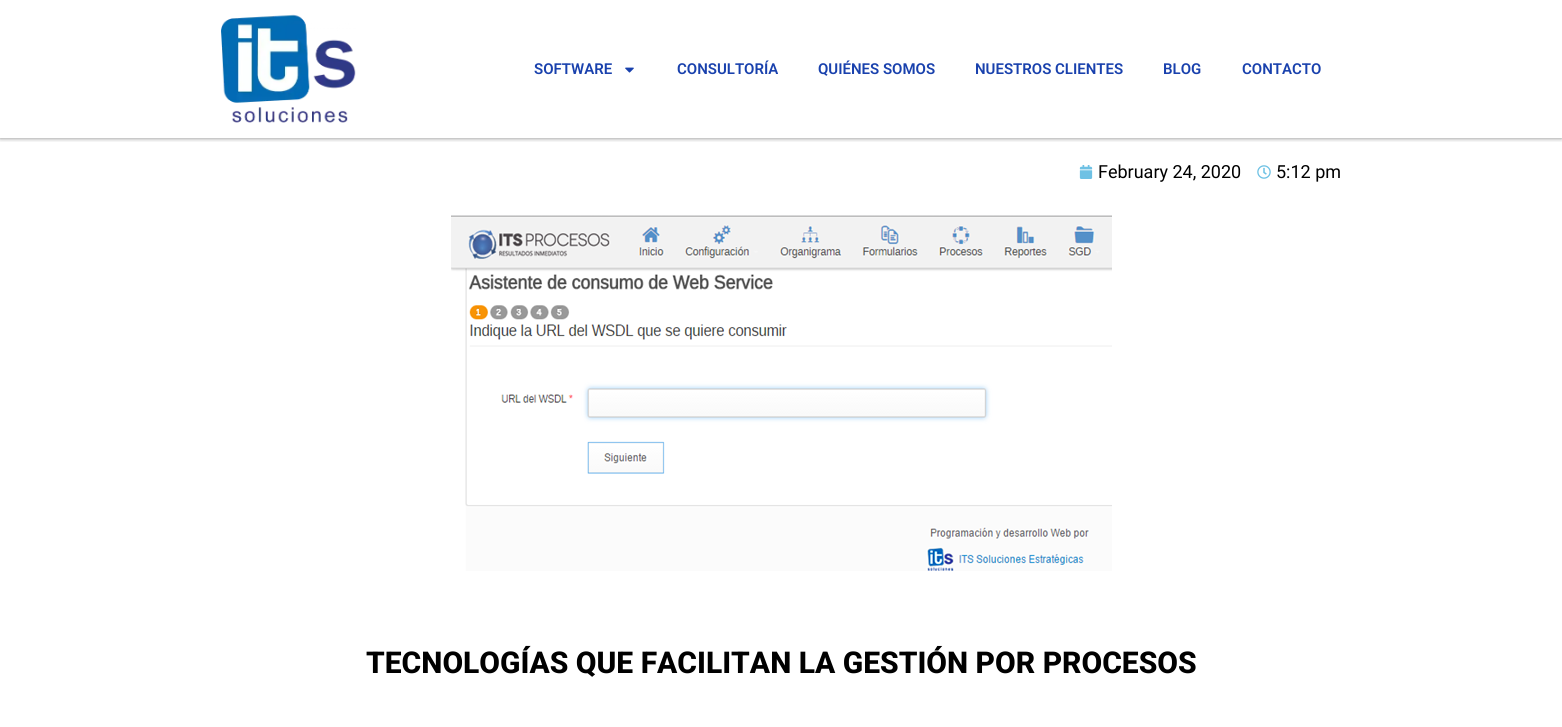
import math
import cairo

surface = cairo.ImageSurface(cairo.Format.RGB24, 1562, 727)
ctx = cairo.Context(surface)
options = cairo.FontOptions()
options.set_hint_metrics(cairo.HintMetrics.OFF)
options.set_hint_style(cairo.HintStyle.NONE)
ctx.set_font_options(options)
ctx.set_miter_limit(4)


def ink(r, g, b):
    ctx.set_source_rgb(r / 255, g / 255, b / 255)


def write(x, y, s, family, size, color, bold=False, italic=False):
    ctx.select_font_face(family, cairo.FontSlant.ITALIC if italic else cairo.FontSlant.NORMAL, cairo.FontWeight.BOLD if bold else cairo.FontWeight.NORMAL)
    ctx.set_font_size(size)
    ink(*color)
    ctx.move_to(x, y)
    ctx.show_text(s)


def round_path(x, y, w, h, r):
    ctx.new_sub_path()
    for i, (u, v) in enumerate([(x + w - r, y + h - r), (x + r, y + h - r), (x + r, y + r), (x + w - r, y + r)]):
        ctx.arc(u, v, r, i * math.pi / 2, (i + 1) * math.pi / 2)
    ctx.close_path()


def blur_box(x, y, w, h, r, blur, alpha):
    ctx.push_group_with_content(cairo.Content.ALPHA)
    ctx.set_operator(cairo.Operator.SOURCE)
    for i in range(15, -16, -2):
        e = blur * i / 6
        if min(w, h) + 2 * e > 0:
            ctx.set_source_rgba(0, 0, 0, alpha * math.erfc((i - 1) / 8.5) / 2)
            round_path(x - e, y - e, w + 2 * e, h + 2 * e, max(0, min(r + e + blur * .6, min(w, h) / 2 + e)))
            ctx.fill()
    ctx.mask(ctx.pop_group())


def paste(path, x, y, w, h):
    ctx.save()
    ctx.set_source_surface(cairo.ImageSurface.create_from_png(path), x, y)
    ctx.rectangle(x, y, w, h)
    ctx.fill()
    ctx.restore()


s1 = dict(family="Roboto SemiBold", size=15, color=(25, 65, 173))
s2 = dict(family="Roboto", size=18, color=(0, 0, 0))
s3 = dict(family="Roboto ExtraBold", size=30, color=(0, 0, 0))

ink(255, 255, 255)
ctx.paint()
ctx.save()
ctx.rectangle(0, 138, 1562, 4)
ctx.clip()
ink(0, 0, 0)
blur_box(0, 0, 1562, 138, 0, 2.5, 0.5)
ctx.restore()
paste("pic1.png", 221, 14, 135, 109)
write(534, 74, "SOFTWARE", **s1)
paste("pic2.png", 625, 67, 9, 6)
write(677, 74, "CONSULTORÍA", **s1)
write(818, 74, "QUIÉNES SOMOS", **s1)
write(975, 74, "NUESTROS CLIENTES", **s1)
write(1163, 74, "BLOG", **s1)
write(1242, 74, "CONTACTO", **s1)
paste("pic3.png", 1079, 165, 14, 14)
write(1098, 178, "February 24, 2020", **s2)
paste("pic4.png", 1257, 165, 14, 14)
write(1276, 178, "5:12 pm", **s2)
paste("pic5.png", 451, 215, 661, 356)
write(366, 673, "TECNOLOGÍAS QUE FACILITAN LA GESTIÓN POR PROCESOS", **s3)
surface.write_to_png("screenshot.png")
